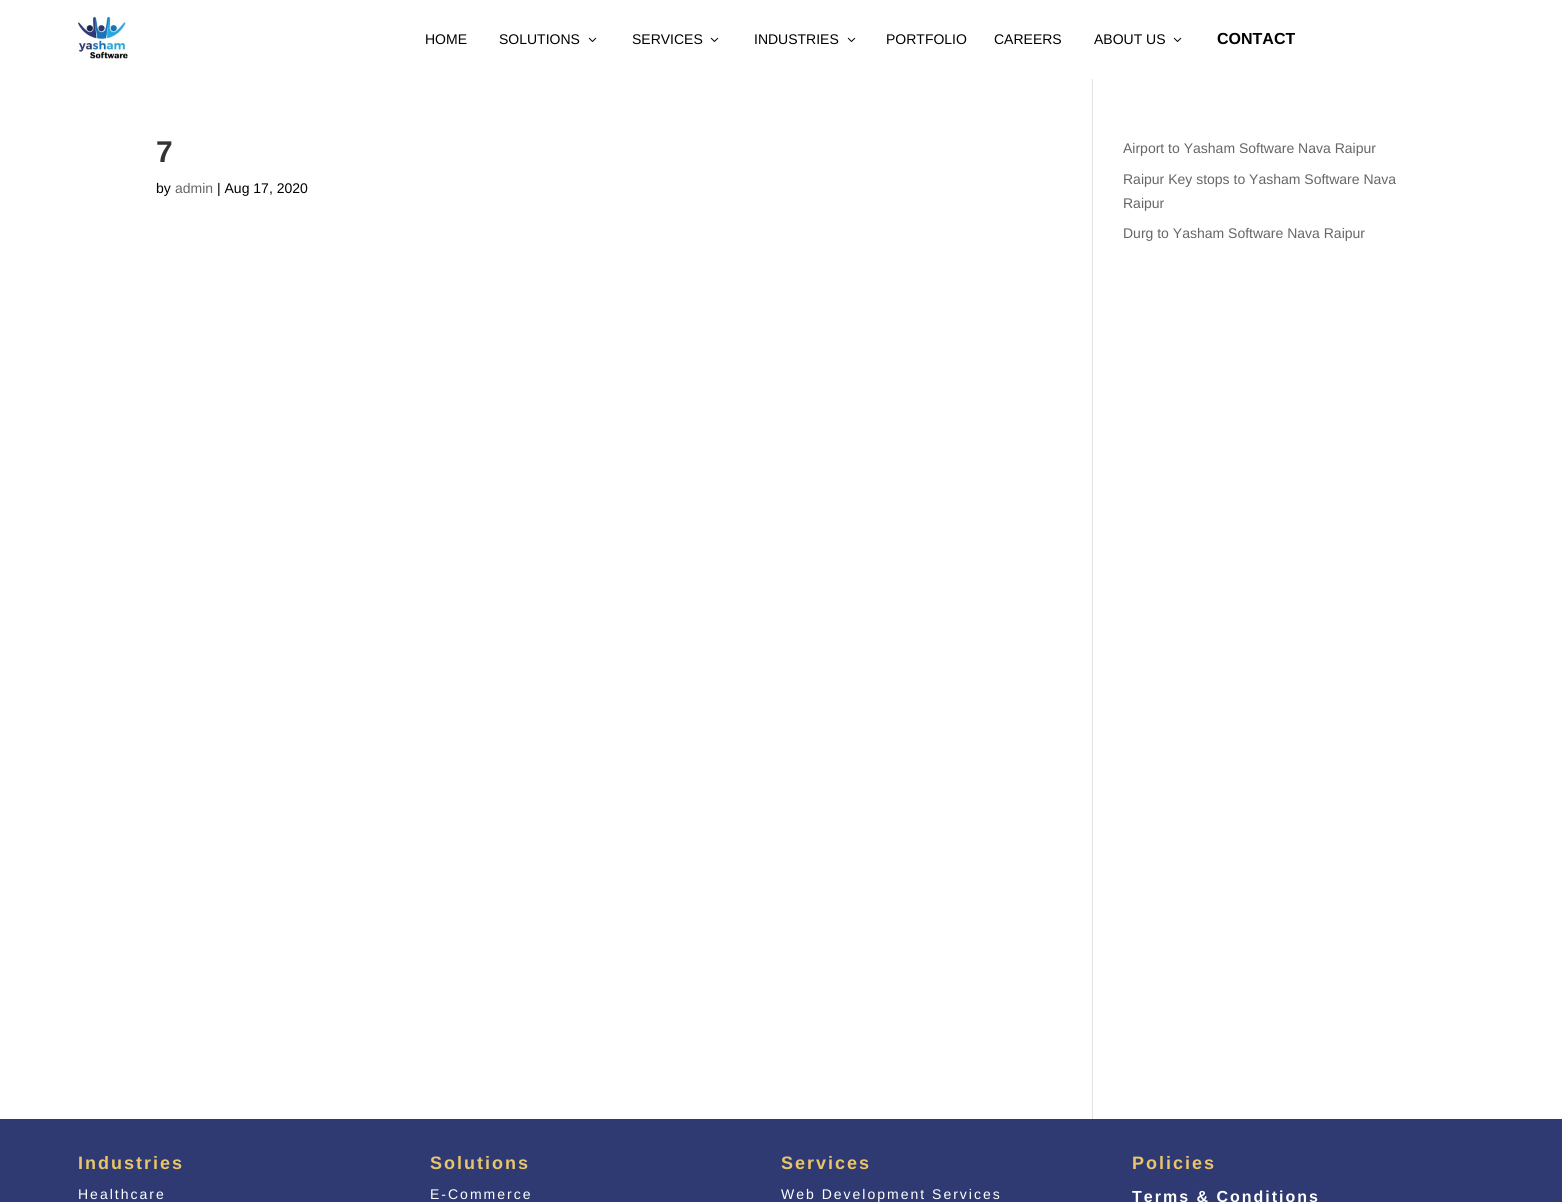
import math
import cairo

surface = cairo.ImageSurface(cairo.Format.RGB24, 1562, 1202)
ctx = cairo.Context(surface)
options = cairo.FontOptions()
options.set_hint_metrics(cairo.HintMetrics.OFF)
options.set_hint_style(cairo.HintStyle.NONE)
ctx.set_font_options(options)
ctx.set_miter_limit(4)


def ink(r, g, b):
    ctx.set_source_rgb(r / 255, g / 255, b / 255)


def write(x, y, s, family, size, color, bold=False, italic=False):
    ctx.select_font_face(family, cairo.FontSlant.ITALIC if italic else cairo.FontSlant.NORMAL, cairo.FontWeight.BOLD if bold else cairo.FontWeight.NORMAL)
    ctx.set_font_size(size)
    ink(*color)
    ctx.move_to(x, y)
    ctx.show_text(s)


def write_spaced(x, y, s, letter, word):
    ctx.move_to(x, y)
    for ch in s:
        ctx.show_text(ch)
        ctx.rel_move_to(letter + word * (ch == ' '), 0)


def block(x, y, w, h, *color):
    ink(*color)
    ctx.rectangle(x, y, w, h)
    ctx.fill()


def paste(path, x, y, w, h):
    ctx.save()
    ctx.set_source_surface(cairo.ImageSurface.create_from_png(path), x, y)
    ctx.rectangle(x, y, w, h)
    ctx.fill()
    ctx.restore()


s1 = dict(family="Liberation Sans", size=14, color=(0, 0, 0))
s2 = dict(family="Liberation Sans", size=16, color=(0, 0, 0), bold=True)
s3 = dict(family="Liberation Sans", size=30, color=(51, 51, 51), bold=True)
s4 = dict(family="Liberation Sans", size=14, color=(102, 102, 102))

ink(255, 255, 255)
ctx.paint()
paste("pic1.png", 78, 17, 50, 42)
write(425, 44, "HOME", **s1)
write(499, 44, "SOLUTIONS", **s1)
paste("pic2.png", 588, 37, 9, 5)
write(632, 44, "SERVICES", **s1)
paste("pic2.png", 710, 37, 9, 5)
write(754, 44, "INDUSTRIES", **s1)
paste("pic2.png", 847, 37, 9, 5)
write(886, 44, "PORTFOLIO", **s1)
write(994, 44, "CAREERS", **s1)
write(1094, 44, "ABOUT US", **s1)
paste("pic2.png", 1173, 37, 9, 5)
write(1217, 44, "CONTACT", **s2)
block(1092, 79, 1, 1042, 226, 226, 226)
write(156, 162, "7", **s3)
write(156, 193, "by", **s1)
write(175, 193, "admin", **s4)
write(217, 193, "| Aug 17, 2020", **s1)
write(1123, 153, "Airport to Yasham Software Nava Raipur", **s4)
write(1123, 184, "Raipur Key stops to Yasham Software Nava", **s4)
write(1123, 208, "Raipur", **s4)
write(1123, 238, "Durg to Yasham Software Nava Raipur", **s4)
block(0, 1119, 1562, 83, 47, 58, 115)
ctx.select_font_face("Liberation Sans", cairo.FontSlant.NORMAL, cairo.FontWeight.BOLD)
ctx.set_font_size(18)
ink(233, 196, 106)
write_spaced(78, 1169, "Industries", 2, 0)
ctx.select_font_face("Liberation Sans")
ctx.set_font_size(14)
ink(255, 255, 255)
write_spaced(78, 1199, "Healthcare", 2, 0)
ctx.select_font_face("Liberation Sans", cairo.FontSlant.NORMAL, cairo.FontWeight.BOLD)
ctx.set_font_size(18)
ink(233, 196, 106)
write_spaced(430, 1169, "Solutions", 2, 0)
ctx.select_font_face("Liberation Sans")
ctx.set_font_size(14)
ink(255, 255, 255)
write_spaced(430, 1199, "E-Commerce", 2, 0)
ctx.select_font_face("Liberation Sans", cairo.FontSlant.NORMAL, cairo.FontWeight.BOLD)
ctx.set_font_size(18)
ink(233, 196, 106)
write_spaced(781, 1169, "Services", 2, 0)
ctx.select_font_face("Liberation Sans")
ctx.set_font_size(14)
ink(255, 255, 255)
write_spaced(781, 1199, "Web Development Services", 2, 0)
ctx.select_font_face("Liberation Sans", cairo.FontSlant.NORMAL, cairo.FontWeight.BOLD)
ctx.set_font_size(18)
ink(233, 196, 106)
write_spaced(1132, 1169, "Policies", 2, 0)
ctx.set_font_size(16)
ink(255, 255, 255)
write_spaced(1132, 1202, "Terms & Conditions", 2, 0)
surface.write_to_png("screenshot.png")
